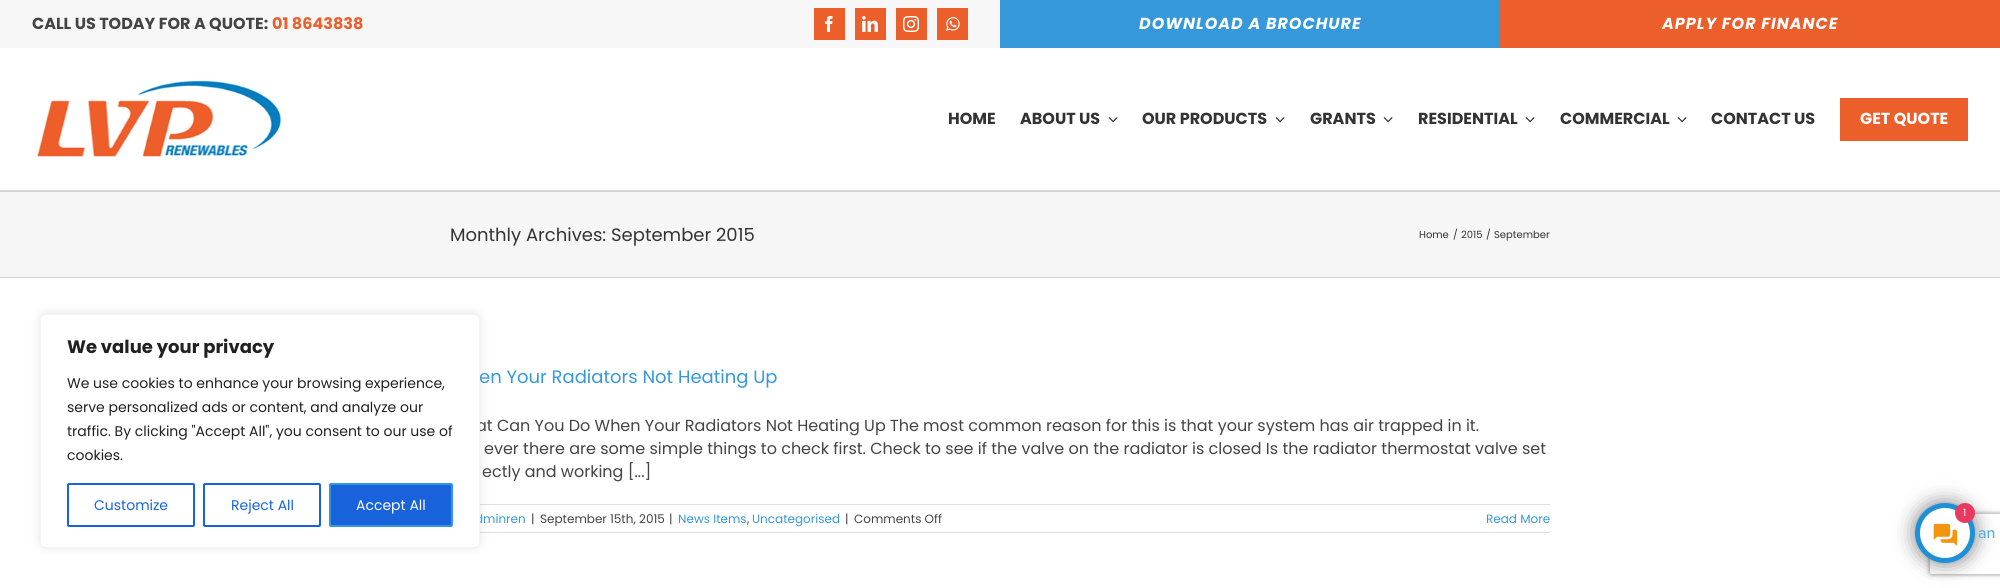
import math
import cairo

surface = cairo.ImageSurface(cairo.Format.RGB24, 2000, 588)
ctx = cairo.Context(surface)
options = cairo.FontOptions()
options.set_hint_metrics(cairo.HintMetrics.OFF)
options.set_hint_style(cairo.HintStyle.NONE)
ctx.set_font_options(options)
ctx.set_miter_limit(4)


def ink(r, g, b):
    ctx.set_source_rgb(r / 255, g / 255, b / 255)


def write(x, y, s, family, size, color, bold=False, italic=False):
    ctx.select_font_face(family, cairo.FontSlant.ITALIC if italic else cairo.FontSlant.NORMAL, cairo.FontWeight.BOLD if bold else cairo.FontWeight.NORMAL)
    ctx.set_font_size(size)
    ink(*color)
    ctx.move_to(x, y)
    ctx.show_text(s)


def write_spaced(x, y, s, letter, word):
    ctx.move_to(x, y)
    for ch in s:
        ctx.show_text(ch)
        ctx.rel_move_to(letter + word * (ch == ' '), 0)


def block(x, y, w, h, *color):
    ink(*color)
    ctx.rectangle(x, y, w, h)
    ctx.fill()


def round_path(x, y, w, h, r):
    ctx.new_sub_path()
    for i, (u, v) in enumerate([(x + w - r, y + h - r), (x + r, y + h - r), (x + r, y + r), (x + w - r, y + r)]):
        ctx.arc(u, v, r, i * math.pi / 2, (i + 1) * math.pi / 2)
    ctx.close_path()


def blur_box(x, y, w, h, r, blur, alpha):
    ctx.push_group_with_content(cairo.Content.ALPHA)
    ctx.set_operator(cairo.Operator.SOURCE)
    for i in range(15, -16, -2):
        e = blur * i / 6
        if min(w, h) + 2 * e > 0:
            ctx.set_source_rgba(0, 0, 0, alpha * math.erfc((i - 1) / 8.5) / 2)
            round_path(x - e, y - e, w + 2 * e, h + 2 * e, max(0, min(r + e + blur * .6, min(w, h) / 2 + e)))
            ctx.fill()
    ctx.mask(ctx.pop_group())


def paste(path, x, y, w, h):
    ctx.save()
    ctx.set_source_surface(cairo.ImageSurface.create_from_png(path), x, y)
    ctx.rectangle(x, y, w, h)
    ctx.fill()
    ctx.restore()


s1 = dict(family="Poppins", size=16, color=(68, 68, 68), bold=True)
s2 = dict(family="Poppins", size=16, color=(236, 94, 42), bold=True)
s3 = dict(family="Poppins", size=16, color=(51, 51, 51), bold=True)
s4 = dict(family="Poppins", size=16, color=(255, 255, 255), bold=True)
s5 = dict(family="Poppins", size=18, color=(51, 51, 51))
s6 = dict(family="Poppins", size=10, color=(51, 51, 51))
s7 = dict(family="Poppins", size=18, color=(52, 152, 219))
s8 = dict(family="Poppins", size=16, color=(68, 68, 68))
s9 = dict(family="Poppins", size=12, color=(52, 152, 219))
s10 = dict(family="Poppins", size=12, color=(68, 68, 68))
s11 = dict(family="Poppins", size=18, color=(33, 33, 33), bold=True)
s12 = dict(family="Poppins", size=14, color=(33, 33, 33))
s13 = dict(family="Poppins", size=14, color=(24, 99, 220))
s14 = dict(family="Poppins", size=14, color=(255, 255, 255))
s15 = dict(family="Poppins", size=10, color=(255, 255, 255))
s16 = dict(family="Proxima Nova Medium", size=16, color=(90, 172, 222))

ink(255, 255, 255)
ctx.paint()
block(0, 0, 1000, 48, 247, 247, 247)
write(32, 29, "CALL US TODAY FOR A QUOTE:", **s1)
write(272, 29, "01 8643838", **s2)
block(814, 8, 31, 32, 236, 94, 42)
paste("pic1.png", 825, 16, 8, 16)
block(855, 8, 31, 32, 236, 94, 42)
paste("pic2.png", 862, 16, 16, 16)
block(896, 8, 31, 32, 236, 94, 42)
paste("pic3.png", 903, 16, 16, 16)
block(937, 8, 31, 32, 236, 94, 42)
paste("pic4.png", 946, 17, 14, 14)
block(1000, 0, 500, 48, 52, 152, 219)
ctx.select_font_face("Poppins", cairo.FontSlant.ITALIC, cairo.FontWeight.BOLD)
ink(255, 255, 255)
write_spaced(1139, 29, "DOWNLOAD A BROCHURE", 1, 0)
block(1500, 0, 500, 48, 236, 94, 42)
ink(255, 255, 255)
write_spaced(1662, 29, "APPLY FOR FINANCE", 1, 0)
block(0, 190, 2000, 1, 217, 217, 217)
paste("pic5.png", 37, 80, 244, 77)
write(948, 124, "HOME", **s3)
write(1020, 124, "ABOUT US", **s3)
paste("pic6.png", 1108, 117, 10, 6)
write(1142, 124, "OUR PRODUCTS", **s3)
paste("pic6.png", 1275, 117, 10, 6)
write(1310, 124, "GRANTS", **s3)
paste("pic6.png", 1383, 117, 10, 6)
write(1418, 124, "RESIDENTIAL", **s3)
paste("pic6.png", 1525, 117, 10, 6)
write(1560, 124, "COMMERCIAL", **s3)
paste("pic6.png", 1677, 117, 10, 6)
write(1711, 124, "CONTACT US", **s3)
block(1840, 98, 128, 43, 236, 94, 42)
write(1860, 124, "GET QUOTE", **s4)
block(0, 192, 2000, 85, 246, 246, 246)
block(0, 191, 2000, 1, 210, 211, 212)
block(0, 277, 2000, 1, 210, 211, 212)
write(450, 241, "Monthly Archives: September 2015", **s5)
write(1419, 238, "Home", **s6)
write(1453, 238, "/", **s6)
write(1461, 238, "2015", **s6)
write(1486, 238, "/", **s6)
write(1494, 238, "September", **s6)
write(479, 383, "en Your Radiators Not Heating Up", **s7)
write(476, 431, "at Can You Do When Your Radiators Not Heating Up The most common reason for this is that your system has air trapped in it.", **s8)
write(484, 454, "ever there are some simple things to check first. Check to see if the valve on the radiator is closed Is the radiator thermostat valve set", **s8)
write(482, 477, "ectly and working [...]", **s8)
block(480, 504, 1070, 1, 224, 222, 222)
block(480, 532, 1070, 1, 224, 222, 222)
write(475, 523, "dminren", **s9)
write(531, 523, "|", **s10)
write(540, 523, "September 15th, 2015", **s10)
write(669, 523, "|", **s10)
write(678, 523, "News Items", **s9)
write(747, 523, ",", **s10)
write(752, 523, "Uncategorised", **s9)
write(845, 523, "|", **s10)
write(854, 523, "Comments Off", **s10)
write(1486, 523, "Read More", **s9)
ink(172, 171, 171)
blur_box(40, 313, 440, 234, 6, 5, 0.3)
ink(255, 255, 255)
round_path(40.5, 314.5, 439, 233, 5.5)
ctx.fill_preserve()
ink(244, 244, 244)
ctx.set_line_width(1)
ctx.stroke()
write(67, 353, "We value your privacy", **s11)
write(67, 388, "We use cookies to enhance your browsing experience,", **s12)
write(67, 412, "serve personalized ads or content, and analyze our", **s12)
write(67, 436, "traffic. By clicking \"Accept All\", you consent to our use of", **s12)
write(67, 460, "cookies.", **s12)
round_path(68, 484, 126, 42, 1)
ink(24, 99, 220)
ctx.set_line_width(2)
ctx.stroke()
write(94, 510, "Customize", **s13)
round_path(204, 484, 116, 42, 1)
ctx.stroke()
write(231, 510, "Reject All", **s13)
round_path(330, 484, 122, 42, 1)
ctx.fill_preserve()
ink(52, 152, 219)
ctx.stroke()
write(356, 510, "Accept All", **s14)
ctx.save()
ctx.set_fill_rule(cairo.FillRule.EVEN_ODD)
ctx.new_path()
ctx.move_to(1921, 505)
ctx.line_to(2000, 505)
ctx.line_to(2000, 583)
ctx.line_to(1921, 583)
ctx.close_path()
ctx.move_to(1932, 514)
ctx.line_to(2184, 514)
ctx.curve_to(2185, 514, 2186, 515, 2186, 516)
ctx.line_to(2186, 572)
ctx.curve_to(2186, 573, 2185, 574, 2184, 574)
ctx.line_to(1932, 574)
ctx.curve_to(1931, 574, 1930, 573, 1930, 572)
ctx.line_to(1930, 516)
ctx.curve_to(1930, 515, 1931, 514, 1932, 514)
ctx.close_path()
ctx.clip()
ink(128, 128, 128)
blur_box(1930, 514, 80, 60, 2, 2.5, 1)
ctx.restore()
ink(0, 0, 0)
blur_box(1915, 503, 60, 60, 30, 10, 0.5)
ink(29, 144, 215)
ctx.arc(1945, 533, 30, 0, 2 * math.pi)
ctx.fill()
ink(255, 255, 255)
ctx.arc(1945, 533, 25, 0, 2 * math.pi)
ctx.fill()
paste("pic7.png", 1933, 523, 25, 23)
ink(235, 56, 94)
ctx.arc(1965, 513, 10, 0, 2 * math.pi)
ctx.fill()
write(1963, 516, "1", **s15)
write(1978, 538, "an", **s16)
surface.write_to_png("screenshot.png")
